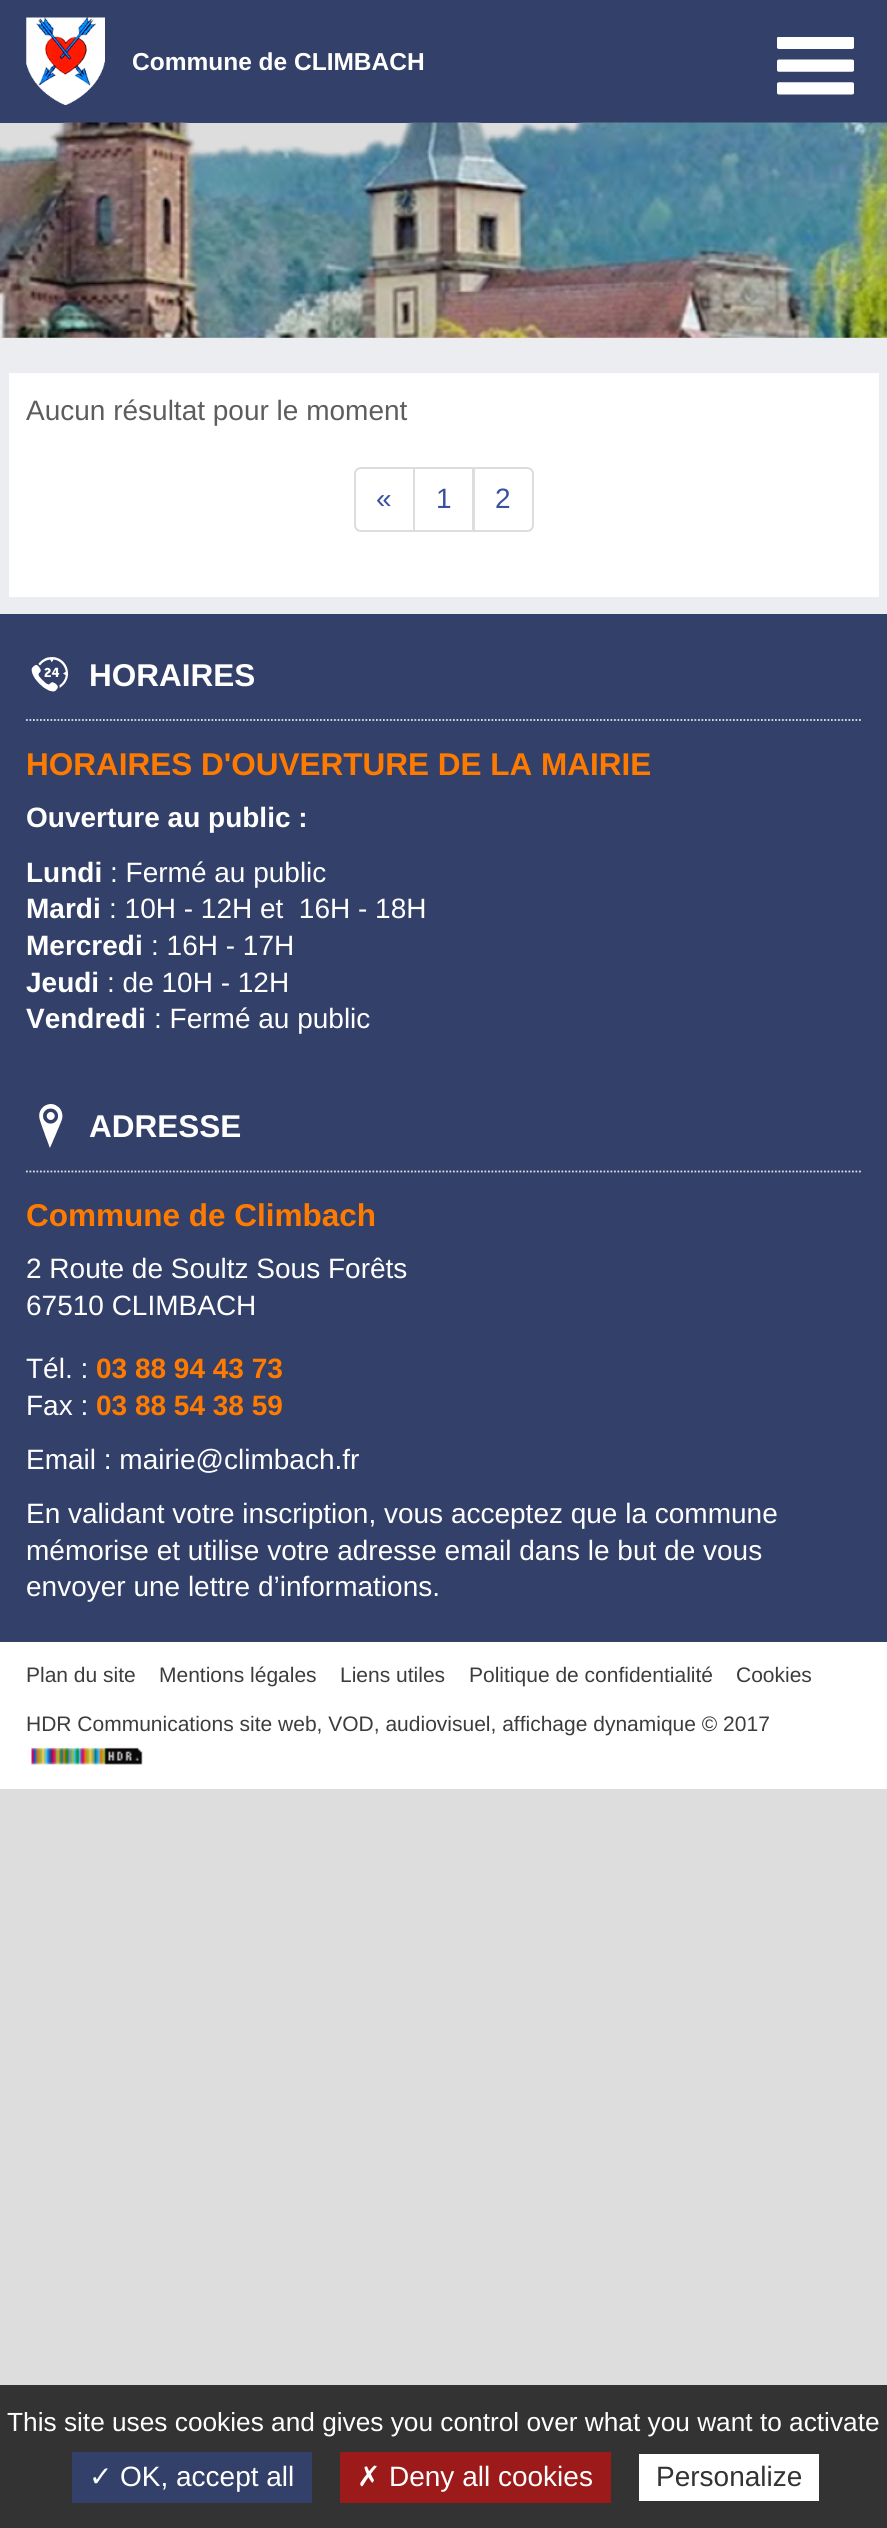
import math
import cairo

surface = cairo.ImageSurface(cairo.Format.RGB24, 887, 2528)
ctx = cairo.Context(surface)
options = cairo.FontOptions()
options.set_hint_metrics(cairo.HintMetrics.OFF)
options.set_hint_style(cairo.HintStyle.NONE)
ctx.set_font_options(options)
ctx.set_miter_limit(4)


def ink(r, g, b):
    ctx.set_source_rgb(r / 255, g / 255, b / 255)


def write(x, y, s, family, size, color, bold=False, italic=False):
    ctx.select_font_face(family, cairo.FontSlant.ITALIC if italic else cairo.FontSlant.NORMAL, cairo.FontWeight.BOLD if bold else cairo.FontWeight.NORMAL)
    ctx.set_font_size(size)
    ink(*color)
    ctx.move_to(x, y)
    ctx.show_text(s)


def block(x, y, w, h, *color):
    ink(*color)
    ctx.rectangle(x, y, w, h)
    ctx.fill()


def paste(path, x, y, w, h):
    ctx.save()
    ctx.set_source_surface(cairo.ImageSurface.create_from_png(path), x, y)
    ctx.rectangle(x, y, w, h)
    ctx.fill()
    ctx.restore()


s1 = dict(family="Liberation Sans", size=24.5, color=(255, 255, 255), bold=True)
s2 = dict(family="Liberation Sans", size=28, color=(93, 93, 93))
s3 = dict(family="Liberation Sans", size=28, color=(56, 81, 161))
s4 = dict(family="Liberation Sans", size=31.5, color=(255, 255, 255), bold=True)
s5 = dict(family="Liberation Sans", size=31.5, color=(255, 123, 0), bold=True)
s6 = dict(family="Liberation Sans", size=28, color=(255, 255, 255), bold=True)
s7 = dict(family="Liberation Sans", size=28, color=(255, 255, 255))
s8 = dict(family="Liberation Sans", size=28, color=(255, 123, 0), bold=True)
s9 = dict(family="Liberation Sans", size=21, color=(60, 60, 59))
s10 = dict(family="Liberation Sans", size=26.25, color=(255, 255, 255))
s11 = dict(family="DejaVu Sans", size=28, color=(255, 255, 255))
s12 = dict(family="Liberation Sans", size=28, color=(51, 51, 51))

ink(221, 221, 221)
ctx.paint()
block(0, 0, 887, 123, 51, 64, 105)
paste("pic1.png", 26, 17, 79, 88)
write(132, 70, "Commune de CLIMBACH", **s1)
paste("pic2.png", 777, 37, 77, 58)
paste("pic3.png", 0, 122, 887, 216)
block(0, 338, 887, 276, 236, 237, 241)
block(9, 373, 870, 224, 255, 255, 255)
write(26, 420, "Aucun résultat pour le moment", **s2)
ctx.new_path()
ctx.move_to(361, 468)
ctx.line_to(414, 468)
ctx.line_to(414, 531)
ctx.line_to(361, 531)
ctx.curve_to(357.5, 531, 355, 528.5, 355, 525)
ctx.line_to(355, 474)
ctx.curve_to(355, 470.5, 357.5, 468, 361, 468)
ctx.close_path()
ink(221, 221, 221)
ctx.stroke()
write(376, 508, "«", **s3)
ctx.rectangle(414, 468, 59, 63)
ink(221, 221, 221)
ctx.stroke()
write(436, 508, "1", **s3)
ink(255, 255, 255)
ctx.new_path()
ctx.move_to(474, 468)
ctx.line_to(527, 468)
ctx.curve_to(530.5, 468, 533, 470.5, 533, 474)
ctx.line_to(533, 525)
ctx.curve_to(533, 528.5, 530.5, 531, 527, 531)
ctx.line_to(474, 531)
ctx.close_path()
ctx.fill_preserve()
ink(221, 221, 221)
ctx.stroke()
write(495, 508, "2", **s3)
block(0, 614, 887, 1028, 51, 64, 105)
ctx.new_path()
ctx.move_to(26, 720)
ctx.line_to(861, 720)
ink(224, 226, 232)
ctx.set_line_width(1.8)
ctx.set_dash([1.75, 1.75])
ctx.stroke()
paste("pic4.png", 31, 657, 38, 35)
write(89, 686, "HORAIRES", **s4)
write(26, 775, "HORAIRES D'OUVERTURE DE LA MAIRIE", **s5)
write(26, 827, "Ouverture au public :", **s6)
write(26, 882, "Lundi", **s6)
write(110, 882, ": Fermé au public", **s7)
write(26, 918, "Mardi", **s6)
write(109, 918, ": 10H - 12H et  16H - 18H", **s7)
write(26, 955, "Mercredi", **s6)
write(151, 955, ": 16H - 17H", **s7)
write(26, 992, "Jeudi", **s6)
write(107, 992, ": de 10H - 12H", **s7)
write(26, 1028, "Vendredi", **s6)
write(154, 1028, ": Fermé au public", **s7)
ctx.new_path()
ctx.move_to(26, 1171.5)
ctx.line_to(861, 1171.5)
ink(224, 226, 232)
ctx.stroke()
paste("pic5.png", 39, 1104, 24, 44)
write(89, 1137, "ADRESSE", **s4)
write(26, 1226, "Commune de Climbach", **s5)
write(26, 1278, "2 Route de Soultz Sous Forêts", **s7)
write(26, 1315, "67510 CLIMBACH", **s7)
write(26, 1378, "Tél. :", **s7)
write(96, 1378, "03 88 94 43 73", **s8)
write(26, 1415, "Fax :", **s7)
write(96, 1415, "03 88 54 38 59", **s8)
write(26, 1469, "Email : mairie@climbach.fr", **s7)
write(26, 1523, "En validant votre inscription, vous acceptez que la commune", **s7)
write(26, 1560, "mémorise et utilise votre adresse email dans le but de vous", **s7)
write(26, 1596, "envoyer une lettre d’informations.", **s7)
block(0, 1642, 887, 147, 255, 255, 255)
write(26, 1682, "Plan du site", **s9)
write(159, 1682, "Mentions légales", **s9)
write(340, 1682, "Liens utiles", **s9)
write(469, 1682, "Politique de confidentialité", **s9)
write(736, 1682, "Cookies", **s9)
write(26, 1731, "HDR Communications site web, VOD, audiovisuel, affichage dynamique © 2017", **s9)
paste("pic6.png", 31, 1747, 112, 18)
block(0, 2385, 887, 143, 51, 51, 51)
write(7, 2431, "This site uses cookies and gives you control over what you want to activate", **s10)
block(72, 2452, 240, 51, 51, 64, 105)
write(89, 2486, "✓", **s11)
write(120, 2486, "OK, accept all", **s7)
block(340, 2452, 271, 51, 156, 26, 26)
write(357, 2486, "✗", **s11)
write(389, 2486, "Deny all cookies", **s7)
block(639, 2454, 180, 47, 255, 255, 255)
write(656, 2486, "Personalize", **s12)
surface.write_to_png("screenshot.png")
